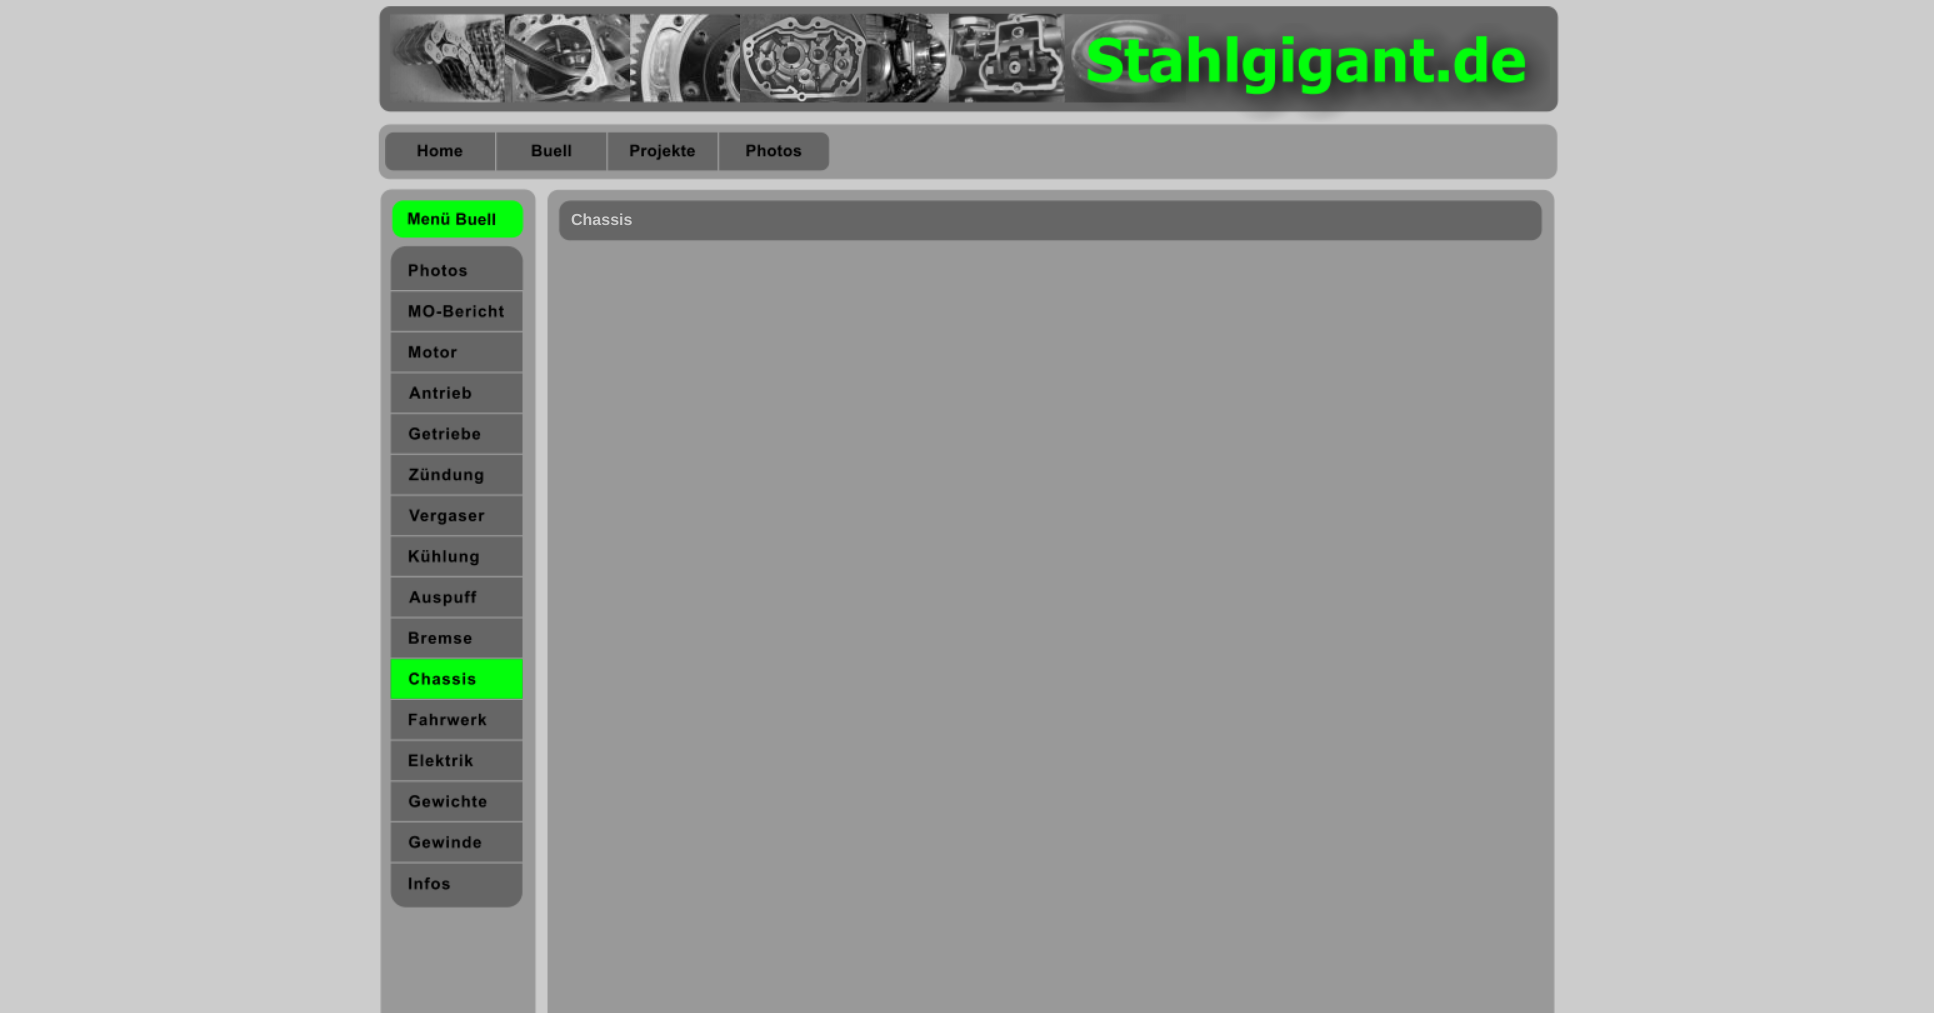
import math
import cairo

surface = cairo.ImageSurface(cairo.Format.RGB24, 1934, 1013)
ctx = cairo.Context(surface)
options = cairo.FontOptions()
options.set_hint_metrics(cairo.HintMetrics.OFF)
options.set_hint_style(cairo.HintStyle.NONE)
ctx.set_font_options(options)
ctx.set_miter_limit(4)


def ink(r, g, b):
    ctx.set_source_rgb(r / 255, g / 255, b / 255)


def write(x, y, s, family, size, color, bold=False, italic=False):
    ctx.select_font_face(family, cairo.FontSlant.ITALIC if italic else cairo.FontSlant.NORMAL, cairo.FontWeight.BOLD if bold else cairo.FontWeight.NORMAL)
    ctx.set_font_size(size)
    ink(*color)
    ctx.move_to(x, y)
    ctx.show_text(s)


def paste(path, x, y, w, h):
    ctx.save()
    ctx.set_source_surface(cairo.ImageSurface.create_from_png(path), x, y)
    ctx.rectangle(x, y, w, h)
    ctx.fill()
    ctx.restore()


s1 = dict(family="Liberation Sans", size=16, color=(204, 204, 204), bold=True)

ink(204, 204, 204)
ctx.paint()
paste("pic1.png", 378, 6, 1181, 107)
paste("pic2.png", 390, 13, 115, 90)
paste("pic3.png", 505, 13, 125, 90)
paste("pic4.png", 630, 13, 110, 90)
paste("pic5.png", 740, 13, 128, 90)
paste("pic8.png", 1064, 14, 122, 89)
paste("pic7.png", 948, 12, 117, 91)
paste("pic6.png", 866, 12, 84, 91)
paste("pic9.png", 1075, 23, 475, 99)
paste("pic10.png", 378, 123, 1180, 57)
paste("pic11.png", 385, 131, 110, 41)
paste("pic12.png", 496, 131, 111, 41)
paste("pic13.png", 607, 131, 111, 41)
paste("pic14.png", 718, 131, 112, 41)
paste("pic15.png", 380, 188, 157, 825)
paste("pic16.png", 547, 189, 1008, 824)
paste("pic17.png", 391, 200, 133, 39)
paste("pic18.png", 558, 200, 985, 42)
paste("pic19.png", 407, 212, 89, 14)
write(571, 225, "Chassis", **s1)
paste("pic20.png", 390, 245, 134, 45)
paste("pic21.png", 390, 291, 133, 41)
paste("pic22.png", 390, 332, 133, 41)
paste("pic23.png", 390, 372, 133, 42)
paste("pic24.png", 390, 413, 133, 41)
paste("pic25.png", 390, 454, 133, 41)
paste("pic26.png", 390, 495, 133, 41)
paste("pic27.png", 390, 536, 133, 41)
paste("pic28.png", 390, 577, 133, 41)
paste("pic29.png", 390, 617, 133, 42)
paste("pic30.png", 390, 658, 133, 41)
paste("pic31.png", 390, 658, 133, 41)
paste("pic32.png", 390, 700, 133, 40)
paste("pic33.png", 390, 740, 133, 41)
paste("pic34.png", 390, 781, 133, 41)
paste("pic35.png", 390, 822, 133, 41)
paste("pic36.png", 390, 862, 133, 46)
surface.write_to_png("screenshot.png")
